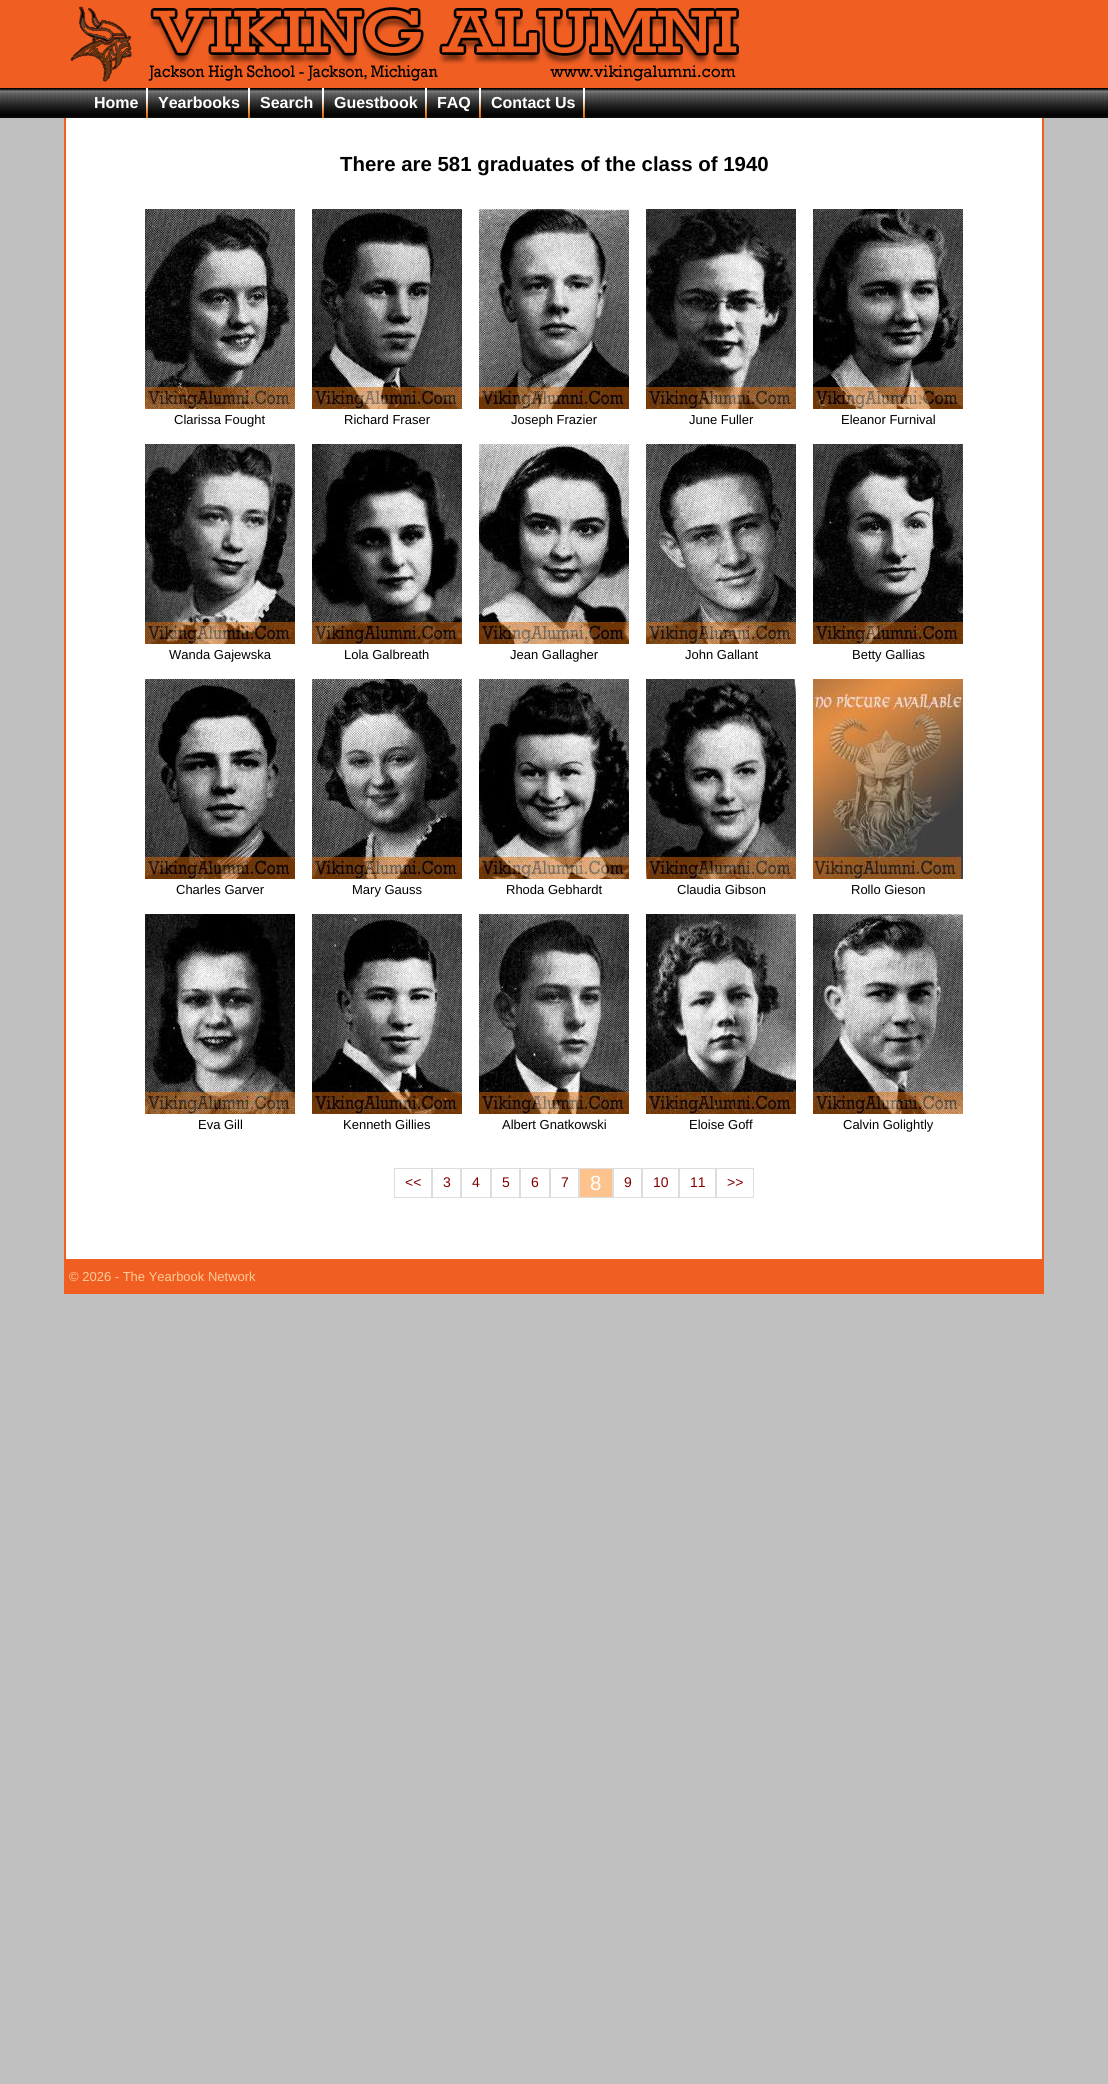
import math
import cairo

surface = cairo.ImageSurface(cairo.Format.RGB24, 1108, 2084)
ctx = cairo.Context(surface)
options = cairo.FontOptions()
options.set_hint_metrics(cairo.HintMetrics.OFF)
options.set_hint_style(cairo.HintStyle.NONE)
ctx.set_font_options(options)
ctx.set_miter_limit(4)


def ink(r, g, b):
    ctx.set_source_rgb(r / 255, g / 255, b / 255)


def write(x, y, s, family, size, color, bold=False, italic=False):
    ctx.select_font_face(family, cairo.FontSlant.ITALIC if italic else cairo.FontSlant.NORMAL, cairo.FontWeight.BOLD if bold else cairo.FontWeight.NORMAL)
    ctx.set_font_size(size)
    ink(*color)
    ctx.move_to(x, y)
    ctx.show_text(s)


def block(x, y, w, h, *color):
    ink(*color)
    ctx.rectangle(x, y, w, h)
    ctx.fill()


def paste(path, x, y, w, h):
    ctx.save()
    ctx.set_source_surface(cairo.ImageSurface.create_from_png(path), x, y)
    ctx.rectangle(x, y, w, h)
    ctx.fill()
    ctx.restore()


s1 = dict(family="Liberation Sans", size=16, color=(255, 255, 255), bold=True)
s2 = dict(family="Liberation Sans", size=20.4, color=(0, 0, 0), bold=True)
s3 = dict(family="Liberation Sans", size=13, color=(0, 0, 0))
s4 = dict(family="Liberation Sans", size=14, color=(128, 0, 0))
s5 = dict(family="Liberation Sans", size=20.4, color=(255, 255, 255))
s6 = dict(family="Liberation Sans", size=13, color=(255, 204, 153))

ink(192, 192, 192)
ctx.paint()
block(0, 0, 1108, 88, 241, 94, 34)
paste("pic1.png", 70, 6, 670, 76)
paste("pic2.png", 0, 88, 1108, 30)
paste("pic3.png", 146, 88, 2, 30)
write(94, 108, "Home", **s1)
paste("pic3.png", 248, 88, 2, 30)
write(158, 108, "Yearbooks", **s1)
paste("pic3.png", 322, 88, 2, 30)
write(260, 108, "Search", **s1)
paste("pic3.png", 425, 88, 2, 30)
write(334, 108, "Guestbook", **s1)
paste("pic3.png", 479, 88, 2, 30)
write(437, 108, "FAQ", **s1)
paste("pic3.png", 583, 88, 2, 30)
write(491, 108, "Contact Us", **s1)
block(66, 118, 976, 1141, 255, 255, 255)
block(1042, 118, 2, 1141, 241, 94, 34)
block(64, 118, 2, 1141, 241, 94, 34)
write(340, 171, "There are 581 graduates of the class of 1940", **s2)
paste("pic4.png", 145, 209, 150, 200)
write(174, 424, "Clarissa Fought", **s3)
paste("pic5.png", 312, 209, 150, 200)
write(344, 424, "Richard Fraser", **s3)
paste("pic6.png", 479, 209, 150, 200)
write(511, 424, "Joseph Frazier", **s3)
paste("pic7.png", 646, 209, 150, 200)
write(689, 424, "June Fuller", **s3)
paste("pic8.png", 813, 209, 150, 200)
write(841, 424, "Eleanor Furnival", **s3)
paste("pic9.png", 145, 444, 150, 200)
write(169, 659, "Wanda Gajewska", **s3)
paste("pic10.png", 312, 444, 150, 200)
write(344, 659, "Lola Galbreath", **s3)
paste("pic11.png", 479, 444, 150, 200)
write(510, 659, "Jean Gallagher", **s3)
paste("pic12.png", 646, 444, 150, 200)
write(685, 659, "John Gallant", **s3)
paste("pic13.png", 813, 444, 150, 200)
write(852, 659, "Betty Gallias", **s3)
paste("pic14.png", 145, 679, 150, 200)
write(176, 894, "Charles Garver", **s3)
paste("pic15.png", 312, 679, 150, 200)
write(352, 894, "Mary Gauss", **s3)
paste("pic16.png", 479, 679, 150, 200)
write(506, 894, "Rhoda Gebhardt", **s3)
paste("pic17.png", 646, 679, 150, 200)
write(677, 894, "Claudia Gibson", **s3)
paste("pic18.png", 813, 679, 150, 200)
write(851, 894, "Rollo Gieson", **s3)
paste("pic19.png", 145, 914, 150, 200)
write(198, 1129, "Eva Gill", **s3)
paste("pic20.png", 312, 914, 150, 200)
write(343, 1129, "Kenneth Gillies", **s3)
paste("pic21.png", 479, 914, 150, 200)
write(502, 1129, "Albert Gnatkowski", **s3)
paste("pic22.png", 646, 914, 150, 200)
write(689, 1129, "Eloise Goff", **s3)
paste("pic23.png", 813, 914, 150, 200)
write(843, 1129, "Calvin Golightly", **s3)
ctx.rectangle(394.5, 1168.5, 37, 29)
ink(221, 221, 221)
ctx.set_line_width(1)
ctx.stroke()
write(405, 1187, "<<", **s4)
ctx.rectangle(432.5, 1168.5, 28, 29)
ink(221, 221, 221)
ctx.stroke()
write(443, 1187, "3", **s4)
ctx.rectangle(461.5, 1168.5, 29, 29)
ink(221, 221, 221)
ctx.stroke()
write(472, 1187, "4", **s4)
ctx.rectangle(491.5, 1168.5, 28, 29)
ink(221, 221, 221)
ctx.stroke()
write(502, 1187, "5", **s4)
ctx.rectangle(520.5, 1168.5, 29, 29)
ink(221, 221, 221)
ctx.stroke()
write(531, 1187, "6", **s4)
ctx.rectangle(550.5, 1168.5, 28, 29)
ink(221, 221, 221)
ctx.stroke()
write(561, 1187, "7", **s4)
ink(254, 194, 141)
ctx.rectangle(579.5, 1168.5, 33, 29)
ctx.fill_preserve()
ink(221, 221, 221)
ctx.stroke()
write(590, 1190, "8", **s5)
ctx.rectangle(613.5, 1168.5, 28, 29)
ink(221, 221, 221)
ctx.stroke()
write(624, 1187, "9", **s4)
ctx.rectangle(642.5, 1168.5, 36, 29)
ink(221, 221, 221)
ctx.stroke()
write(653, 1187, "10", **s4)
ctx.rectangle(679.5, 1168.5, 36, 29)
ink(221, 221, 221)
ctx.stroke()
write(690, 1187, "11", **s4)
ctx.rectangle(716.5, 1168.5, 37, 29)
ink(221, 221, 221)
ctx.stroke()
write(727, 1187, ">>", **s4)
block(64, 1259, 980, 35, 241, 94, 34)
write(69, 1281, "© 2026 - The Yearbook Network", **s6)
surface.write_to_png("screenshot.png")
